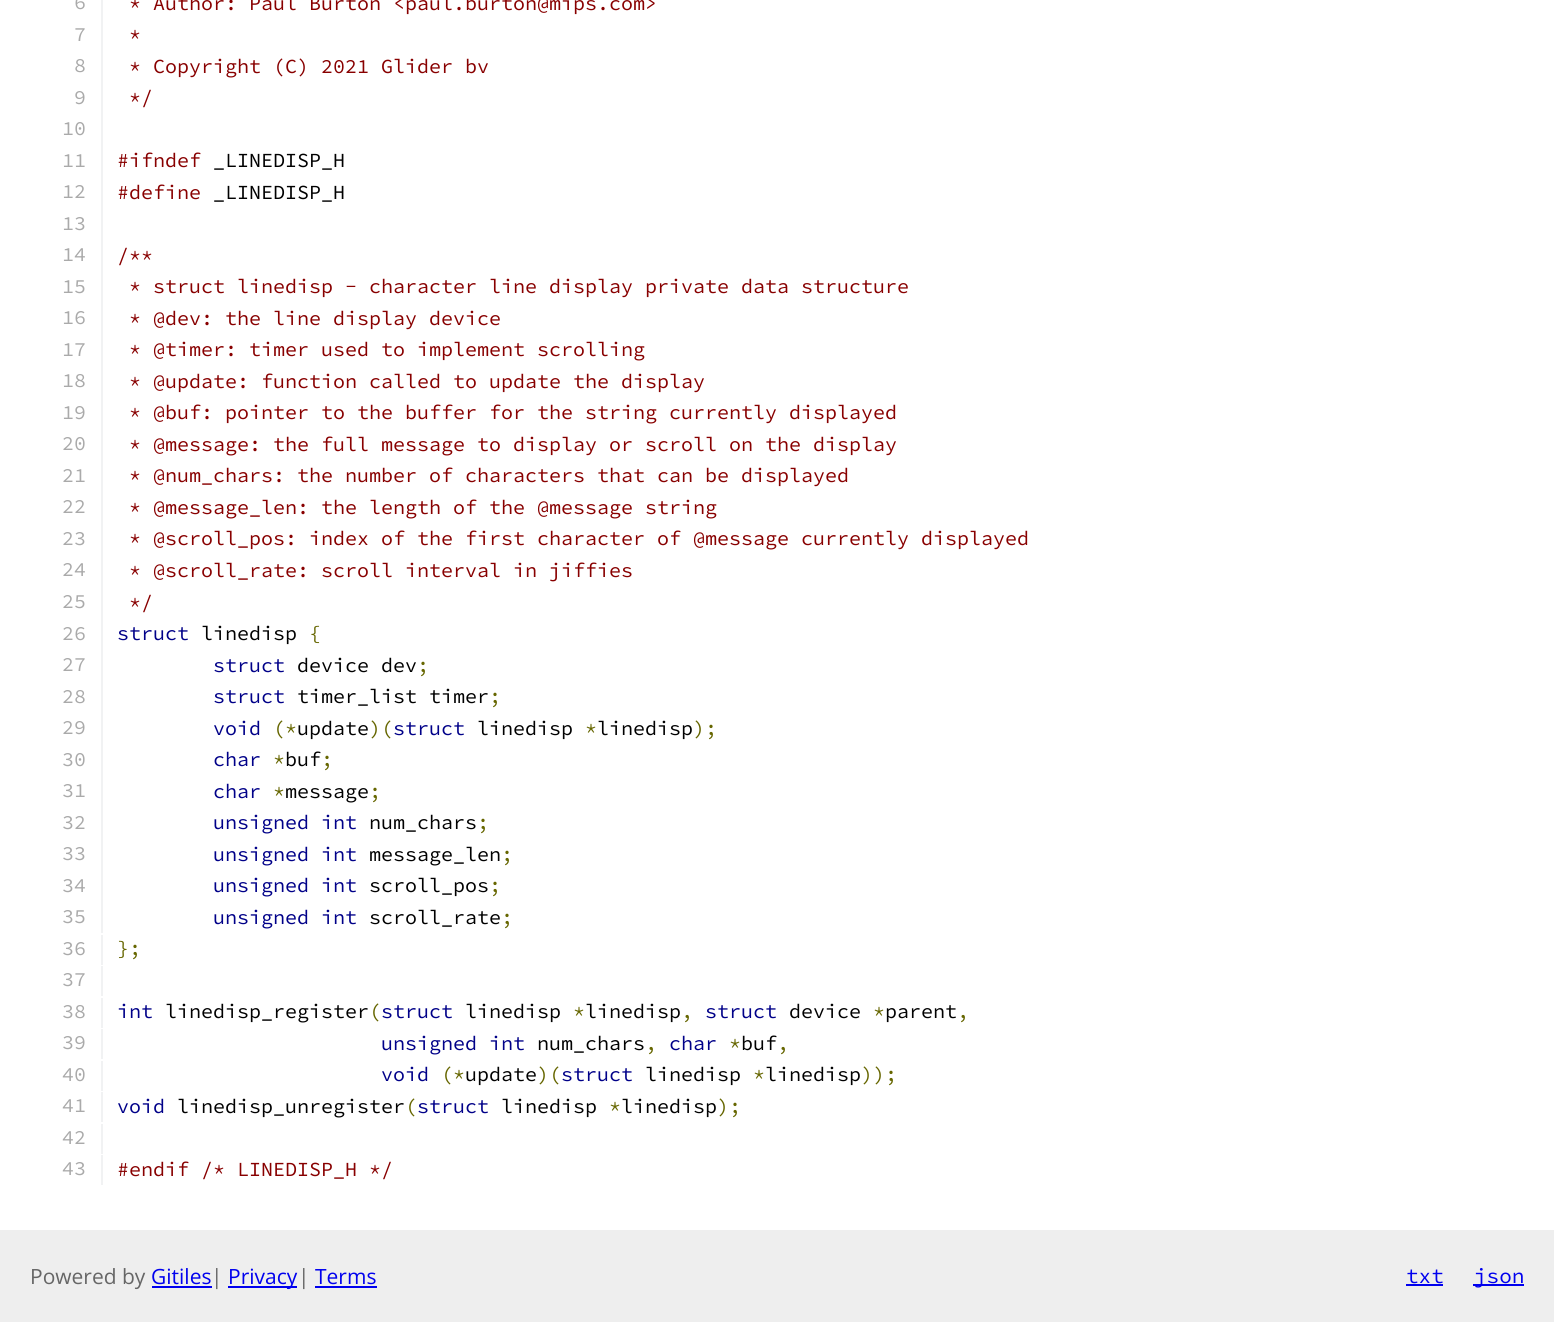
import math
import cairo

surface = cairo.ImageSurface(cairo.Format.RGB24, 1554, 1322)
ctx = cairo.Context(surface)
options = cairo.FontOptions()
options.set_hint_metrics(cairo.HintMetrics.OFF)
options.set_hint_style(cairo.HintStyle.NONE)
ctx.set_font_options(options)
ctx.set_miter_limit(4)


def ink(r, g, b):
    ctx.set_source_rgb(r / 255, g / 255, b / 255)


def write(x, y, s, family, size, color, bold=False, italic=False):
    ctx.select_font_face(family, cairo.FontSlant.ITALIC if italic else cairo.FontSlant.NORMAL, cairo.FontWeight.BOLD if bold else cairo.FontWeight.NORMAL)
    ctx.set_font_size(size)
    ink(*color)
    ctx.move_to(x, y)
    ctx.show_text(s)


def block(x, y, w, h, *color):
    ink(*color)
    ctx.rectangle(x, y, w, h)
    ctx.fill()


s1 = dict(family="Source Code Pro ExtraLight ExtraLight", size=20, color=(170, 170, 170))
s2 = dict(family="Source Code Pro ExtraLight ExtraLight", size=20, color=(136, 0, 0))
s3 = dict(family="Source Code Pro ExtraLight ExtraLight", size=20, color=(0, 0, 0))
s4 = dict(family="Source Code Pro ExtraLight ExtraLight", size=20, color=(0, 0, 136))
s5 = dict(family="Source Code Pro ExtraLight ExtraLight", size=20, color=(102, 102, 0))
s6 = dict(family="Open Sans", size=21, color=(102, 102, 102))
s7 = dict(family="Open Sans", size=21, color=(0, 0, 238))
s8 = dict(family="Source Code Pro ExtraLight ExtraLight", size=21, color=(0, 0, 238))

ink(255, 255, 255)
ctx.paint()
block(101, 0, 2, 933, 241, 242, 243)
write(74, 9, "6", **s1)
write(129, 10, "* Author: Paul Burton <paul.burton@mips.com>", **s2)
write(74, 41, "7", **s1)
write(129, 41, "*", **s2)
write(74, 72, "8", **s1)
write(129, 73, "* Copyright (C) 2021 Glider bv", **s2)
write(74, 104, "9", **s1)
write(129, 104, "*/", **s2)
write(62, 135, "10", **s1)
write(62, 167, "11", **s1)
write(117, 167, "#ifndef", **s2)
write(213, 167, "_LINEDISP_H", **s3)
write(62, 198, "12", **s1)
write(117, 199, "#define", **s2)
write(213, 199, "_LINEDISP_H", **s3)
write(62, 230, "13", **s1)
write(62, 261, "14", **s1)
write(117, 262, "/**", **s2)
write(62, 293, "15", **s1)
write(129, 293, "* struct linedisp - character line display private data structure", **s2)
write(62, 324, "16", **s1)
write(129, 325, "* @dev: the line display device", **s2)
write(62, 356, "17", **s1)
write(129, 356, "* @timer: timer used to implement scrolling", **s2)
write(62, 387, "18", **s1)
write(129, 388, "* @update: function called to update the display", **s2)
write(62, 419, "19", **s1)
write(129, 419, "* @buf: pointer to the buffer for the string currently displayed", **s2)
write(62, 450, "20", **s1)
write(129, 451, "* @message: the full message to display or scroll on the display", **s2)
write(62, 482, "21", **s1)
write(129, 482, "* @num_chars: the number of characters that can be displayed", **s2)
write(62, 513, "22", **s1)
write(129, 514, "* @message_len: the length of the @message string", **s2)
write(62, 545, "23", **s1)
write(129, 545, "* @scroll_pos: index of the first character of @message currently displayed", **s2)
write(62, 576, "24", **s1)
write(129, 577, "* @scroll_rate: scroll interval in jiffies", **s2)
write(62, 608, "25", **s1)
write(129, 609, "*/", **s2)
write(62, 640, "26", **s1)
write(117, 640, "struct", **s4)
write(201, 640, "linedisp", **s3)
write(309, 640, "{", **s5)
write(62, 671, "27", **s1)
write(213, 672, "struct", **s4)
write(297, 672, "device dev", **s3)
write(417, 672, ";", **s5)
write(62, 703, "28", **s1)
write(213, 703, "struct", **s4)
write(297, 703, "timer_list timer", **s3)
write(489, 703, ";", **s5)
write(62, 734, "29", **s1)
write(213, 735, "void", **s4)
write(273, 735, "(*", **s5)
write(297, 735, "update", **s3)
write(369, 735, ")(", **s5)
write(393, 735, "struct", **s4)
write(477, 735, "linedisp", **s3)
write(585, 735, "*", **s5)
write(597, 735, "linedisp", **s3)
write(693, 735, ");", **s5)
write(62, 766, "30", **s1)
write(213, 766, "char", **s4)
write(273, 766, "*", **s5)
write(285, 766, "buf", **s3)
write(321, 766, ";", **s5)
write(62, 797, "31", **s1)
write(213, 798, "char", **s4)
write(273, 798, "*", **s5)
write(285, 798, "message", **s3)
write(369, 798, ";", **s5)
write(62, 829, "32", **s1)
write(213, 829, "unsigned int", **s4)
write(369, 829, "num_chars", **s3)
write(477, 829, ";", **s5)
write(62, 860, "33", **s1)
write(213, 861, "unsigned int", **s4)
write(369, 861, "message_len", **s3)
write(501, 861, ";", **s5)
write(62, 892, "34", **s1)
write(213, 892, "unsigned int", **s4)
write(369, 892, "scroll_pos", **s3)
write(489, 892, ";", **s5)
write(62, 923, "35", **s1)
write(213, 924, "unsigned int", **s4)
write(369, 924, "scroll_rate", **s3)
write(501, 924, ";", **s5)
block(101, 935, 2, 30, 241, 242, 243)
write(62, 955, "36", **s1)
write(117, 955, "};", **s5)
block(101, 966, 2, 30, 241, 242, 243)
write(62, 986, "37", **s1)
block(101, 998, 2, 30, 241, 242, 243)
write(62, 1018, "38", **s1)
write(117, 1018, "int", **s4)
write(165, 1018, "linedisp_register", **s3)
write(369, 1018, "(", **s5)
write(381, 1018, "struct", **s4)
write(465, 1018, "linedisp", **s3)
write(573, 1018, "*", **s5)
write(585, 1018, "linedisp", **s3)
write(705, 1018, "struct", **s4)
write(789, 1018, "device", **s3)
write(873, 1018, "*", **s5)
write(885, 1018, "parent", **s3)
write(681, 1018, ",", **s5)
write(957, 1018, ",", **s5)
block(101, 1029, 2, 30, 241, 242, 243)
write(62, 1049, "39", **s1)
write(381, 1050, "unsigned int", **s4)
write(537, 1050, "num_chars", **s3)
write(669, 1050, "char", **s4)
write(729, 1050, "*", **s5)
write(741, 1050, "buf", **s3)
write(645, 1050, ",", **s5)
write(777, 1050, ",", **s5)
block(101, 1061, 2, 30, 241, 242, 243)
write(62, 1081, "40", **s1)
write(381, 1081, "void", **s4)
write(441, 1081, "(*", **s5)
write(465, 1081, "update", **s3)
write(537, 1081, ")(", **s5)
write(561, 1081, "struct", **s4)
write(645, 1081, "linedisp", **s3)
write(753, 1081, "*", **s5)
write(765, 1081, "linedisp", **s3)
write(861, 1081, "));", **s5)
block(101, 1092, 2, 30, 241, 242, 243)
write(62, 1112, "41", **s1)
write(117, 1113, "void", **s4)
write(177, 1113, "linedisp_unregister", **s3)
write(405, 1113, "(", **s5)
write(417, 1113, "struct", **s4)
write(501, 1113, "linedisp", **s3)
write(609, 1113, "*", **s5)
write(621, 1113, "linedisp", **s3)
write(717, 1113, ");", **s5)
block(101, 1124, 2, 30, 241, 242, 243)
write(62, 1144, "42", **s1)
block(101, 1155, 2, 30, 241, 242, 243)
write(62, 1175, "43", **s1)
write(117, 1176, "#endif /* LINEDISP_H */", **s2)
block(0, 1230, 1554, 92, 238, 238, 238)
write(30, 1284, "Powered by", **s6)
write(151, 1284, "Gitiles", **s7)
block(152, 1286, 60, 2, 0, 0, 238)
write(211, 1284, "|", **s6)
block(228, 1286, 69, 2, 0, 0, 238)
write(228, 1284, "Privacy", **s7)
write(298, 1284, "|", **s6)
write(315, 1284, "Terms", **s7)
block(315, 1286, 62, 2, 0, 0, 238)
write(1406, 1283, "txt", **s8)
block(1406, 1284, 37, 2, 0, 0, 238)
block(1473, 1284, 51, 2, 0, 0, 238)
write(1474, 1283, "json", **s8)
surface.write_to_png("screenshot.png")
